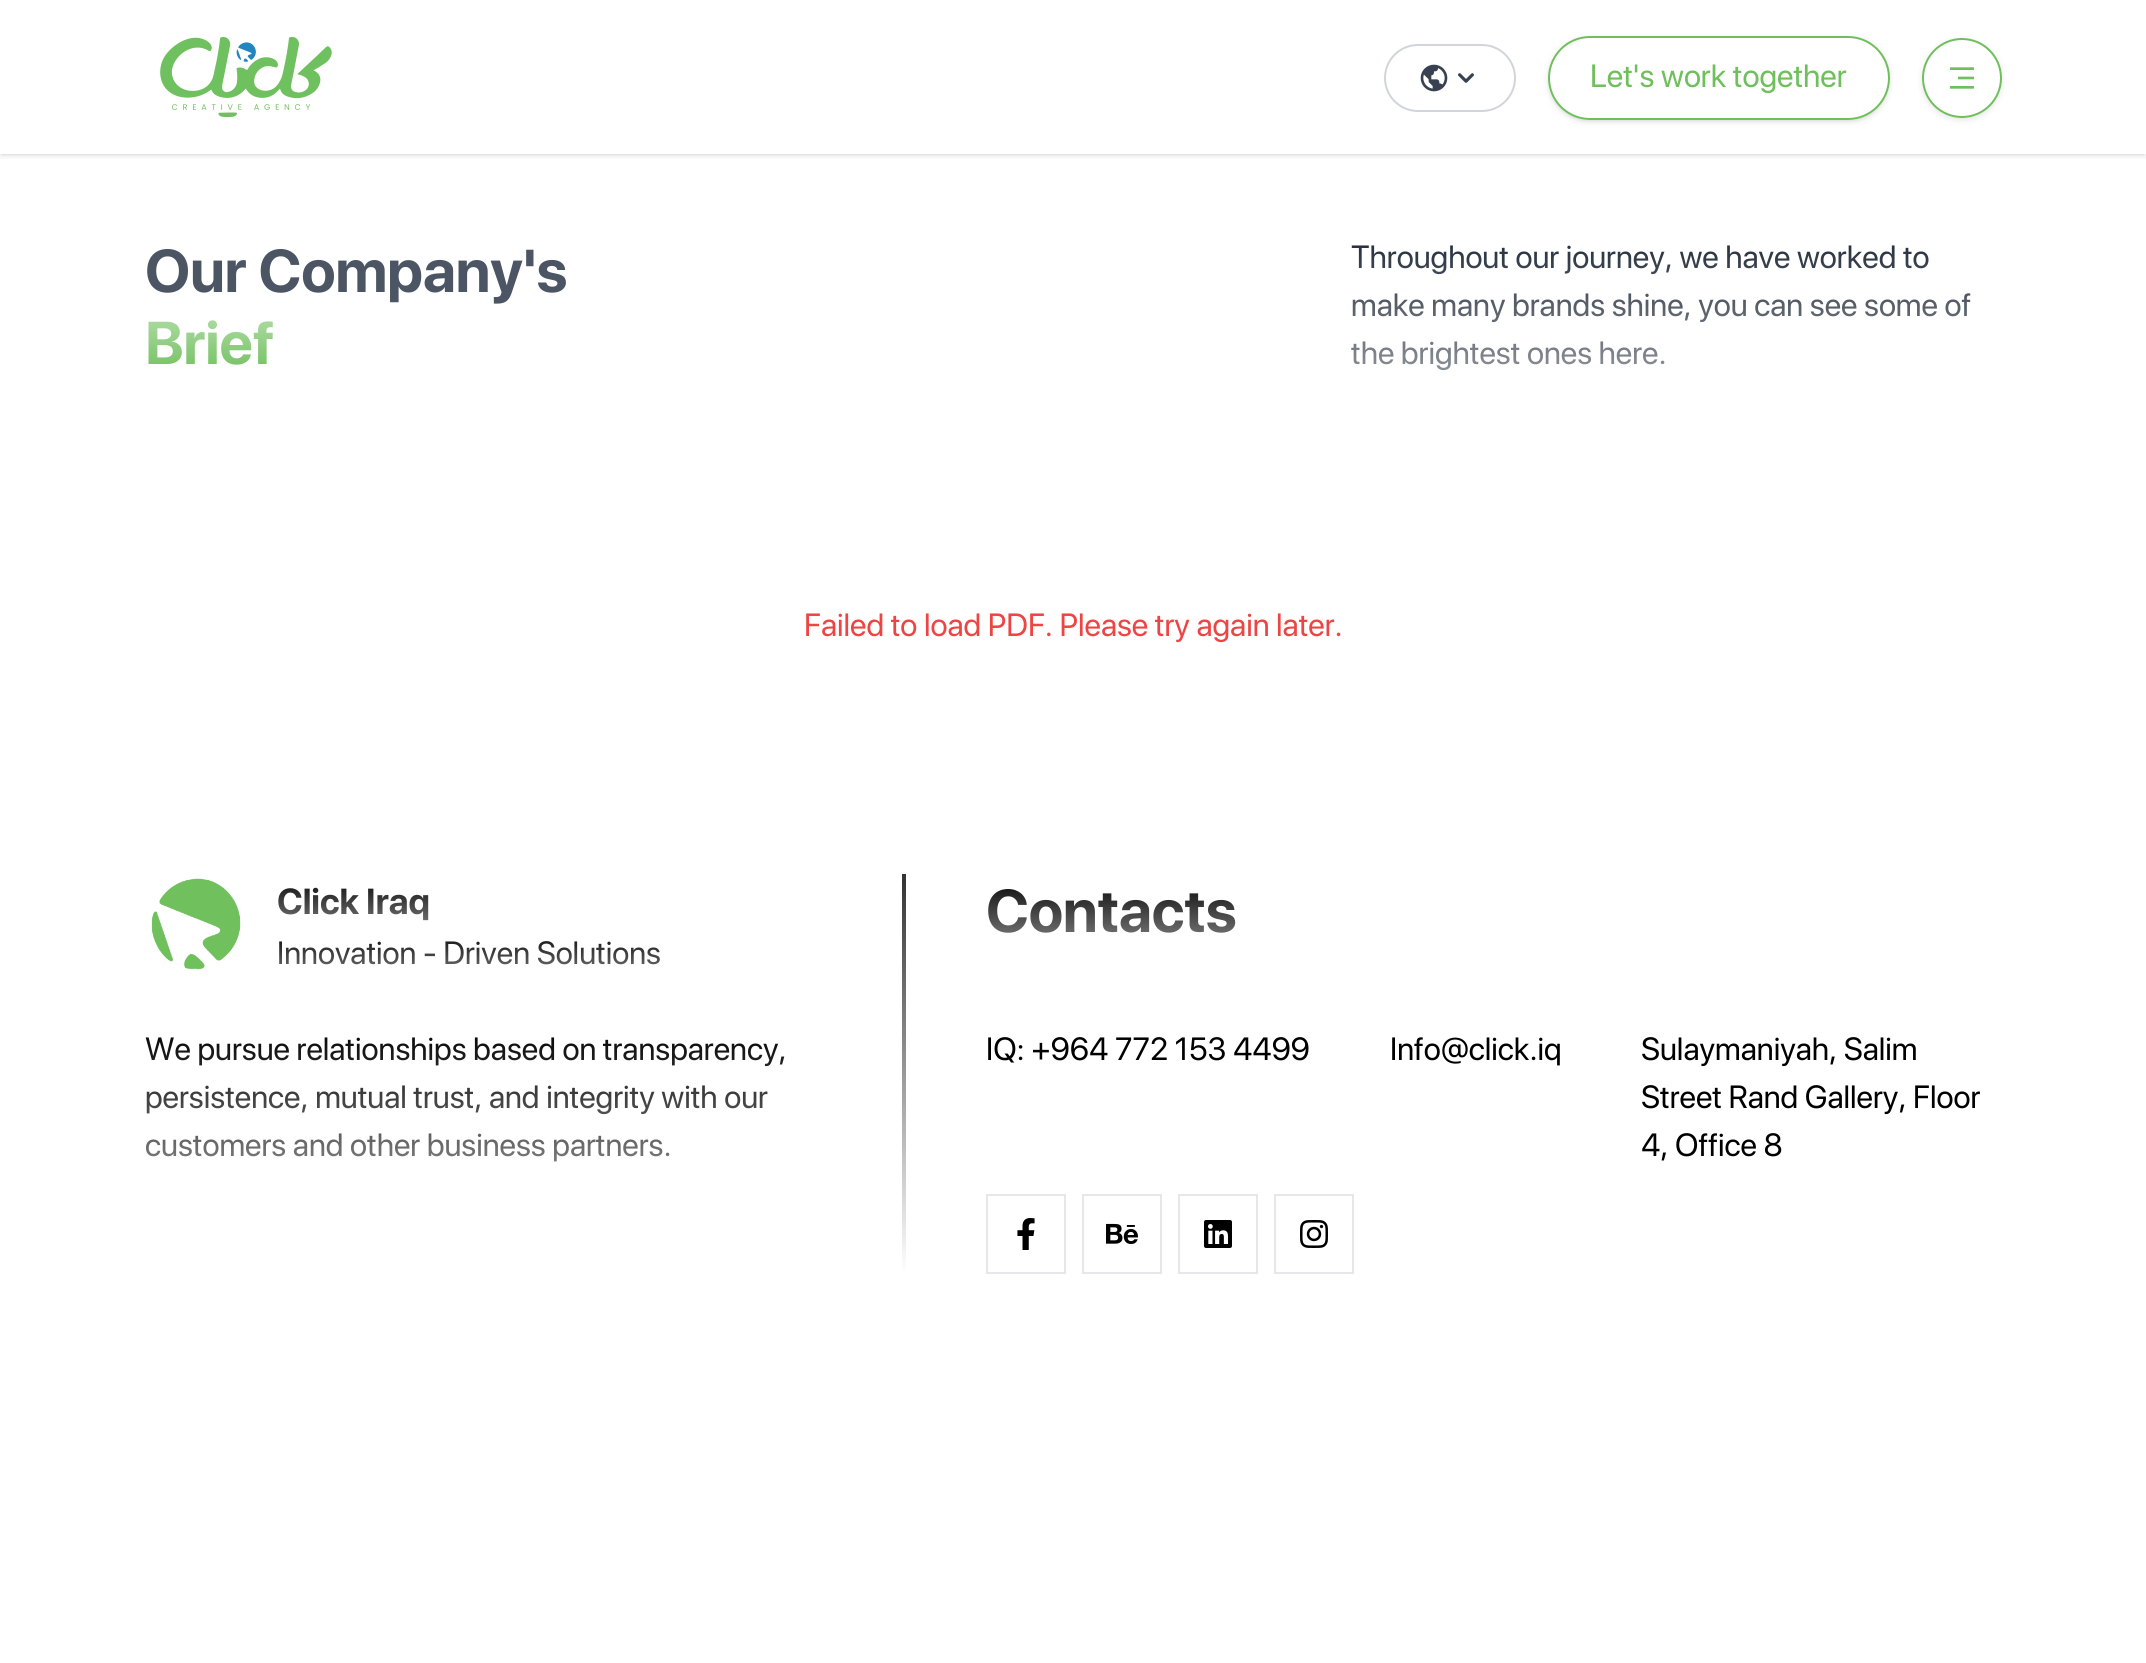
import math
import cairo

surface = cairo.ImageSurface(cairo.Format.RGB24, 2146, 1663)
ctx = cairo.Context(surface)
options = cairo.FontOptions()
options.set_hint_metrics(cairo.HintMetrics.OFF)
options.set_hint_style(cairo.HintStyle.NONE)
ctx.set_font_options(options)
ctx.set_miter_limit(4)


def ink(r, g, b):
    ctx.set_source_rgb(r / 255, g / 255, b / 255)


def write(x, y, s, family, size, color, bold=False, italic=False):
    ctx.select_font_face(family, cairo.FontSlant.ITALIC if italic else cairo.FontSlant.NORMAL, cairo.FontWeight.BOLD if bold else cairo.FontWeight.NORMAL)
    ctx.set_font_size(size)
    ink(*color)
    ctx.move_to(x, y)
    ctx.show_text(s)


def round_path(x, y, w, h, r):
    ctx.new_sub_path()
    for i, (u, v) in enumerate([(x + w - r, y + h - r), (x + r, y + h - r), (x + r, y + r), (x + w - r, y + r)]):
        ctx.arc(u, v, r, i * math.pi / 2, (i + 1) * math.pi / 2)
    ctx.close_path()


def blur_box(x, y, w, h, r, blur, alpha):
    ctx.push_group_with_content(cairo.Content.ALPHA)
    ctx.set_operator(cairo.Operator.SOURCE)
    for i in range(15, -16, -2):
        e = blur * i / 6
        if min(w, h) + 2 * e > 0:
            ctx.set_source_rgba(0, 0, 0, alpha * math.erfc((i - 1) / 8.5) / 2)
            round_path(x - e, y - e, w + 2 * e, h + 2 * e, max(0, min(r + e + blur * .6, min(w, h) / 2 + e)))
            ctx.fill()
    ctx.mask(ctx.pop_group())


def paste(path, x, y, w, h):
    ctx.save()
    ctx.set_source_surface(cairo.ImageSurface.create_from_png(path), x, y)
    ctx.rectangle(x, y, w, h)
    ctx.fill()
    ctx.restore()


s1 = dict(family="SF Pro Display", size=32, color=(111, 191, 92))
s2 = dict(family="SF Pro Display", size=60, color=(75, 85, 99), bold=True)
s3 = dict(family="SF Pro Display", size=32, color=(239, 68, 68))
s4 = dict(family="SF Pro Display", size=32, color=(0, 0, 0))

ink(255, 255, 255)
ctx.paint()
ctx.save()
ctx.rectangle(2, 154, 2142, 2)
ctx.clip()
ink(0, 0, 0)
blur_box(2, 4, 2142, 150, 0, 2, 0.1)
ctx.restore()
ctx.save()
ctx.rectangle(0, 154, 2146, 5)
ctx.clip()
ink(0, 0, 0)
blur_box(0, 2, 2146, 154, 0, 3, 0.1)
ctx.restore()
paste("pic1.png", 160, 36, 172, 82)
round_path(1385, 45, 130, 66, 33)
ink(209, 213, 219)
ctx.stroke()
paste("pic2.png", 1420, 64, 28, 28)
paste("pic3.png", 1458, 73, 16, 10)
ctx.save()
ctx.set_fill_rule(cairo.FillRule.EVEN_ODD)
ctx.new_path()
ctx.move_to(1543, 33)
ctx.line_to(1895, 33)
ctx.line_to(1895, 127)
ctx.line_to(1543, 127)
ctx.close_path()
ctx.move_to(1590, 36)
ctx.line_to(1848, 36)
ctx.curve_to(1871, 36, 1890, 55, 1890, 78)
ctx.curve_to(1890, 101, 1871, 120, 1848, 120)
ctx.line_to(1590, 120)
ctx.curve_to(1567, 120, 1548, 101, 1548, 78)
ctx.curve_to(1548, 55, 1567, 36, 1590, 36)
ctx.close_path()
ctx.clip()
ink(0, 0, 0)
blur_box(1550, 40, 338, 80, 40, 2, 0.1)
ctx.restore()
ctx.save()
ctx.set_fill_rule(cairo.FillRule.EVEN_ODD)
ctx.new_path()
ctx.move_to(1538, 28)
ctx.line_to(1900, 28)
ctx.line_to(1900, 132)
ctx.line_to(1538, 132)
ctx.close_path()
ctx.move_to(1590, 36)
ctx.line_to(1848, 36)
ctx.curve_to(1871, 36, 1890, 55, 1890, 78)
ctx.curve_to(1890, 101, 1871, 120, 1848, 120)
ctx.line_to(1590, 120)
ctx.curve_to(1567, 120, 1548, 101, 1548, 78)
ctx.curve_to(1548, 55, 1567, 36, 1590, 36)
ctx.close_path()
ctx.clip()
ink(0, 0, 0)
blur_box(1548, 38, 342, 84, 42, 3, 0.1)
ctx.restore()
round_path(1549, 37, 340, 82, 41)
ink(111, 191, 92)
ctx.stroke()
write(1590, 87, "Let's work together", **s1)
ctx.save()
ctx.set_fill_rule(cairo.FillRule.EVEN_ODD)
ctx.new_path()
ctx.move_to(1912, 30)
ctx.line_to(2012, 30)
ctx.line_to(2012, 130)
ctx.line_to(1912, 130)
ctx.close_path()
ctx.move_to(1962, 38)
ctx.curve_to(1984, 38, 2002, 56, 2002, 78)
ctx.curve_to(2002, 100, 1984, 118, 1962, 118)
ctx.curve_to(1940, 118, 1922, 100, 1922, 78)
ctx.curve_to(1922, 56, 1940, 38, 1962, 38)
ctx.close_path()
ctx.clip()
ink(0, 0, 0)
blur_box(1922, 40, 80, 80, 40, 3, 0.1)
ctx.restore()
ctx.arc(1962, 78, 39, 0, 2 * math.pi)
ctx.stroke()
paste("pic4.png", 1950, 67, 24, 22)
write(145, 292, "Our Company's", **s2)
gradient = cairo.LinearGradient(210, 378, 210, 306)
gradient.add_color_stop_rgba(0, 0.435, 0.749, 0.361, 1)
gradient.add_color_stop_rgba(1, 0.718, 0.875, 0.682, 1)
ctx.set_source(gradient)
ctx.move_to(145, 364)
ctx.show_text("Brief")
ctx.select_font_face("SF Pro Display")
ctx.set_font_size(32)
gradient = cairo.LinearGradient(1676, 234, 1676, 378)
gradient.add_color_stop_rgba(0, 0.122, 0.161, 0.216, 1)
gradient.add_color_stop_rgba(1, 0.561, 0.58, 0.608, 1)
ctx.set_source(gradient)
ctx.move_to(1351, 268)
ctx.show_text("Throughout our journey, we have worked to")
ctx.move_to(1351, 316)
ctx.show_text("make many brands shine, you can see some of")
ctx.move_to(1351, 364)
ctx.show_text("the brightest ones here.")
write(804, 636, "Failed to load PDF. Please try again later.", **s3)
paste("pic5.png", 151, 878, 90, 92)
ctx.select_font_face("SF Pro Display", cairo.FontSlant.NORMAL, cairo.FontWeight.BOLD)
ctx.set_font_size(36)
gradient = cairo.LinearGradient(469, 874, 469, 930)
gradient.add_color_stop_rgba(0, 0, 0, 0, 1)
gradient.add_color_stop_rgba(1, 0.502, 0.502, 0.502, 1)
ctx.set_source(gradient)
ctx.move_to(277, 914)
ctx.show_text("Click Iraq")
ctx.select_font_face("SF Pro Display")
ctx.set_font_size(32)
gradient = cairo.LinearGradient(469, 930, 469, 978)
gradient.add_color_stop_rgba(0, 0, 0, 0, 1)
gradient.add_color_stop_rgba(1, 0.502, 0.502, 0.502, 1)
ctx.set_source(gradient)
ctx.move_to(277, 964)
ctx.show_text("Innovation - Driven Solutions")
gradient = cairo.LinearGradient(483, 1026, 483, 1170)
gradient.add_color_stop_rgba(0, 0, 0, 0, 1)
gradient.add_color_stop_rgba(1, 0.502, 0.502, 0.502, 1)
ctx.set_source(gradient)
ctx.move_to(145, 1060)
ctx.show_text("We pursue relationships based on transparency,")
ctx.move_to(145, 1108)
ctx.show_text("persistence, mutual trust, and integrity with our")
ctx.move_to(145, 1156)
ctx.show_text("customers and other business partners.")
gradient = cairo.LinearGradient(904, 1274, 904, 874)
gradient.add_color_stop_rgba(0, 1, 1, 1, 1)
gradient.add_color_stop_rgba(1, 0.2, 0.2, 0.2, 1)
ctx.set_source(gradient)
ctx.rectangle(902, 874, 4, 400)
ctx.fill()
ctx.select_font_face("SF Pro Display", cairo.FontSlant.NORMAL, cairo.FontWeight.BOLD)
ctx.set_font_size(60)
gradient = cairo.LinearGradient(1493, 874, 1493, 946)
gradient.add_color_stop_rgba(0, 0, 0, 0, 1)
gradient.add_color_stop_rgba(1, 0.502, 0.502, 0.502, 1)
ctx.set_source(gradient)
ctx.move_to(986, 932)
ctx.show_text("Contacts")
write(986, 1060, "IQ: +964 772 153 4499", **s4)
write(1390, 1060, "Info@click.iq", **s4)
write(1641, 1060, "Sulaymaniyah, Salim", **s4)
write(1641, 1108, "Street Rand Gallery, Floor", **s4)
write(1641, 1156, "4, Office 8", **s4)
ctx.rectangle(987, 1195, 78, 78)
ink(229, 231, 235)
ctx.stroke()
paste("pic6.png", 1017, 1218, 18, 32)
ctx.rectangle(1083, 1195, 78, 78)
ctx.stroke()
paste("pic7.png", 1106, 1223, 32, 21)
ctx.rectangle(1179, 1195, 78, 78)
ctx.stroke()
paste("pic8.png", 1204, 1220, 28, 28)
ctx.rectangle(1275, 1195, 78, 78)
ctx.stroke()
paste("pic9.png", 1300, 1220, 28, 28)
surface.write_to_png("screenshot.png")
